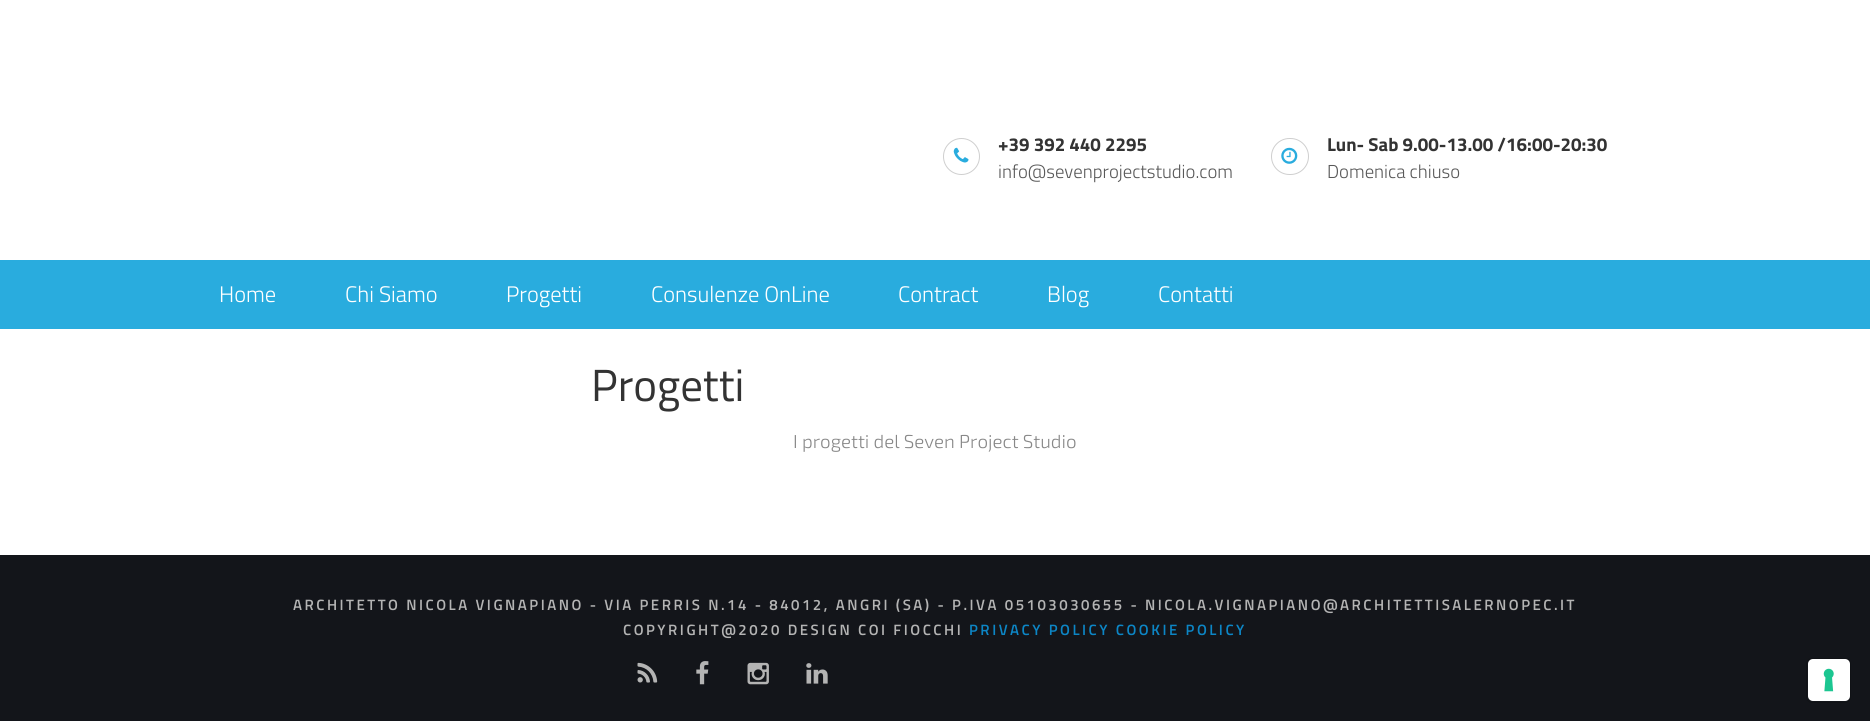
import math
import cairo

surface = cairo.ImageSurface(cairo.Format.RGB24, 1870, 721)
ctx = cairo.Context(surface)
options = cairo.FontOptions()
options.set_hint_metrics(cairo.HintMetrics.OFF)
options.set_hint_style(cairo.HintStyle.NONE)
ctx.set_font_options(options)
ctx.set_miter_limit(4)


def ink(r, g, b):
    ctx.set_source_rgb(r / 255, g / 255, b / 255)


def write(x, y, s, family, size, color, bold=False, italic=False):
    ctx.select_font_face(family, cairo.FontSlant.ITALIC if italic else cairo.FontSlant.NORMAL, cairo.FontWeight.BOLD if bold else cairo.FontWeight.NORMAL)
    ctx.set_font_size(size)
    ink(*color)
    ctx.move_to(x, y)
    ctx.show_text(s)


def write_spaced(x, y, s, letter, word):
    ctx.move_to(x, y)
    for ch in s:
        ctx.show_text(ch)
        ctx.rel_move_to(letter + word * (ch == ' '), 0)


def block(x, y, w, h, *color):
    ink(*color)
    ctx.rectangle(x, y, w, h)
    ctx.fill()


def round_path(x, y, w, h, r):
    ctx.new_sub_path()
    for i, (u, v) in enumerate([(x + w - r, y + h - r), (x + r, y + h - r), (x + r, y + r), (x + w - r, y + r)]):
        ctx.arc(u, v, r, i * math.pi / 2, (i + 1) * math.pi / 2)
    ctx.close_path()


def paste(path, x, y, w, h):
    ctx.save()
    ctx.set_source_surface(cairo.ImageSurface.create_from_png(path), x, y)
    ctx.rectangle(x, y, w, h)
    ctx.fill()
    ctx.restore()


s1 = dict(family="Titillium Web", size=18.75, color=(51, 51, 51), bold=True)
s2 = dict(family="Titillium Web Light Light", size=18.75, color=(89, 89, 89))
s3 = dict(family="Titillium Web Light Light", size=22.5, color=(255, 255, 255))
s4 = dict(family="Titillium Web", size=45, color=(51, 51, 51))
s5 = dict(family="Exo 2 Light", size=18.75, color=(136, 136, 136))

ink(255, 255, 255)
ctx.paint()
ctx.arc(961.5, 156.5, 18, 0, 2 * math.pi)
ink(207, 207, 207)
ctx.set_line_width(1)
ctx.stroke()
paste("pic1.png", 953, 147, 16, 16)
write(998, 151, "+39 392 440 2295", **s1)
write(998, 178, "info@sevenprojectstudio.com", **s2)
round_path(1271.5, 138.5, 37, 36, 18)
ink(207, 207, 207)
ctx.stroke()
paste("pic2.png", 1281, 147, 17, 17)
write(1327, 151, "Lun- Sab 9.00-13.00 /16:00-20:30", **s1)
write(1327, 178, "Domenica chiuso", **s2)
block(0, 260, 1870, 69, 41, 172, 222)
write(219, 302, "Home", **s3)
write(345, 302, "Chi Siamo", **s3)
write(506, 302, "Progetti", **s3)
write(651, 302, "Consulenze OnLine", **s3)
write(898, 302, "Contract", **s3)
write(1047, 302, "Blog", **s3)
write(1158, 302, "Contatti", **s3)
write(591, 401, "Progetti", **s4)
write(793, 448, "I progetti del Seven Project Studio", **s5)
block(0, 555, 1870, 166, 19, 21, 26)
ctx.select_font_face("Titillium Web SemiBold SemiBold")
ctx.set_font_size(15)
ink(180, 180, 180)
write_spaced(293, 610, "ARCHITETTO NICOLA VIGNAPIANO - VIA PERRIS N.14 - 84012, ANGRI (SA) - P.IVA 05103030655 - NICOLA.VIGNAPIANO@ARCHITETTISALERNOPEC.IT", 2.5, 0)
write_spaced(623, 635, "COPYRIGHT@2020 DESIGN COI FIOCCHI", 2.5, 0)
ink(12, 134, 198)
write_spaced(969, 635, "PRIVACY POLICY COOKIE POLICY", 2.5, 0)
paste("pic3.png", 637, 662, 21, 21)
paste("pic4.png", 696, 661, 13, 24)
paste("pic5.png", 747, 662, 22, 23)
paste("pic6.png", 806, 663, 22, 21)
round_path(1806.5, 658.5, 44, 44, 5.5)
ink(16, 18, 22)
ctx.stroke()
ink(255, 255, 255)
round_path(1808, 659, 42, 42, 5)
ctx.fill()
paste("pic7.png", 1823, 668, 11, 24)
surface.write_to_png("screenshot.png")
